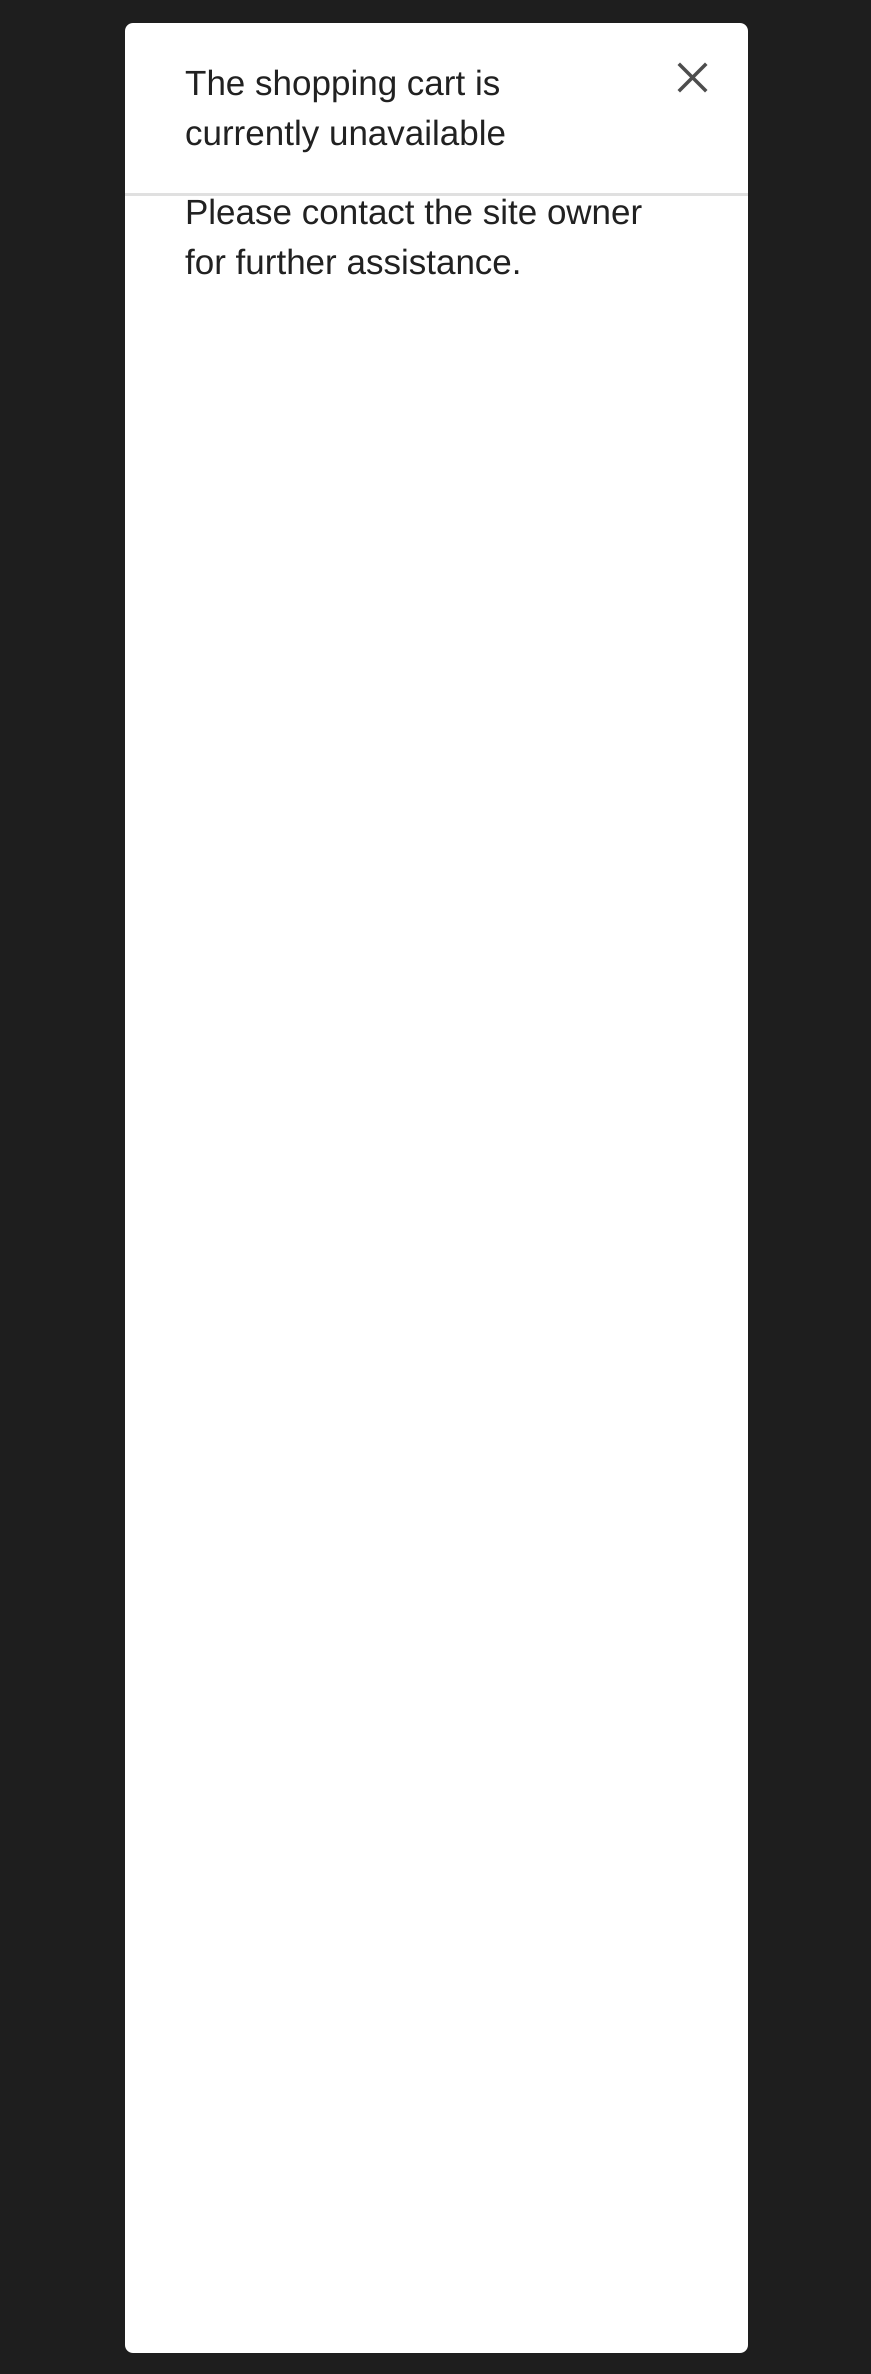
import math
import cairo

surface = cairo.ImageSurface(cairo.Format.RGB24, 871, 2374)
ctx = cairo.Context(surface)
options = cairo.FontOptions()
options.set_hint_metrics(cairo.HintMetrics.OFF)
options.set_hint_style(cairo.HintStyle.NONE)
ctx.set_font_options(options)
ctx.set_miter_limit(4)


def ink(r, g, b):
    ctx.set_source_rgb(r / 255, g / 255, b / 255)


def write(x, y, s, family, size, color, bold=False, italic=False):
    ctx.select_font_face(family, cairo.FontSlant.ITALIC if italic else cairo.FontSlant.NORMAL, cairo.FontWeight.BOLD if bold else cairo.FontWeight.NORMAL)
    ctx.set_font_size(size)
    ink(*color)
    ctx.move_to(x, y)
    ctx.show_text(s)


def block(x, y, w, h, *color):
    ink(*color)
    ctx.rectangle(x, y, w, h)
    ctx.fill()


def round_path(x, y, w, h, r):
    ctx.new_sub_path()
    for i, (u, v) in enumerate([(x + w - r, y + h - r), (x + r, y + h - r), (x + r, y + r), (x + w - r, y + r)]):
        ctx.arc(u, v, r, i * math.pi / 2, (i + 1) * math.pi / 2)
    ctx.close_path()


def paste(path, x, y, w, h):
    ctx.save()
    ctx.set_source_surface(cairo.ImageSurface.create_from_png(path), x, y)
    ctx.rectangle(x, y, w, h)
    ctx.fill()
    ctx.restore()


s1 = dict(family="Liberation Sans", size=35, color=(33, 33, 33))

ink(30, 30, 30)
ctx.paint()
ink(255, 255, 255)
round_path(125, 23, 623, 2330, 8)
ctx.fill()
block(125, 193, 623, 3, 224, 224, 224)
write(185, 95, "The shopping cart is", **s1)
write(185, 145, "currently unavailable", **s1)
write(185, 224, "Please contact the site owner", **s1)
write(185, 274, "for further assistance.", **s1)
paste("pic1.png", 677, 62, 31, 31)
surface.write_to_png("screenshot.png")
